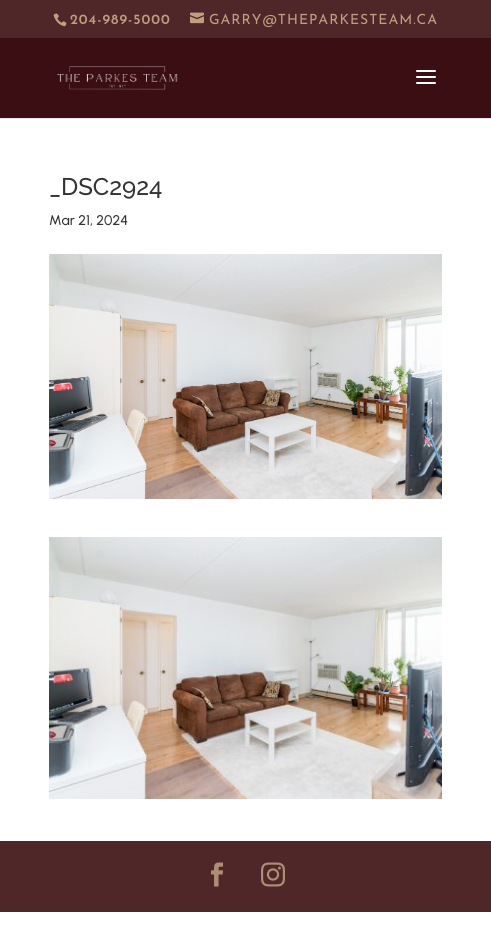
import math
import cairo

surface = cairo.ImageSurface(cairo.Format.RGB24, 491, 952)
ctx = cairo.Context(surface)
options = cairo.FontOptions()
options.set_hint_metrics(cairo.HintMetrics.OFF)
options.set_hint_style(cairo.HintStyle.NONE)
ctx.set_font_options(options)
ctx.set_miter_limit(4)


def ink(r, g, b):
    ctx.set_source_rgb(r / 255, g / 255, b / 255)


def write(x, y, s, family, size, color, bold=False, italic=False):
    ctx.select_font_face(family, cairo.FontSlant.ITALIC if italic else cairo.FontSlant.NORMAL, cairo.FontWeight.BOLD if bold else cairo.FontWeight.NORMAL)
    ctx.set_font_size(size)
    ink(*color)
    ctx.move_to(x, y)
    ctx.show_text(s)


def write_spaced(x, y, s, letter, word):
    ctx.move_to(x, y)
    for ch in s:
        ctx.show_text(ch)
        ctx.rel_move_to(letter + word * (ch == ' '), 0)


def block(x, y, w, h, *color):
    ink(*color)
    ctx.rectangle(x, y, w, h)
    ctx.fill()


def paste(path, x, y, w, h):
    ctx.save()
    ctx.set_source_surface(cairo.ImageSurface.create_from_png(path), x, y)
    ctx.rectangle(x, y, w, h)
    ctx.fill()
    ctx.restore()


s1 = dict(family="Raleway Medium", size=24, color=(51, 51, 51))
s2 = dict(family="Urbanist Medium", size=14, color=(51, 51, 51))

ink(255, 255, 255)
ctx.paint()
block(0, 0, 491, 38, 80, 39, 41)
paste("pic1.png", 53, 13, 14, 14)
ctx.select_font_face("Josefin Sans SemiBold")
ctx.set_font_size(14)
ink(193, 158, 127)
write_spaced(70, 24, "204-989-5000", 1, 0)
paste("pic2.png", 190, 12, 14, 12)
ctx.select_font_face("Josefin Sans")
write_spaced(209, 24, "GARRY@THEPARKESTEAM.CA", 1, 0)
block(0, 118, 491, 1, 230, 230, 230)
block(0, 38, 491, 80, 58, 14, 18)
paste("pic3.png", 57, 66, 121, 24)
paste("pic4.png", 416, 70, 20, 14)
write(49, 195, "_DSC2924", **s1)
write(49, 225, "Mar 21, 2024", **s2)
paste("pic5.png", 49, 254, 393, 245)
paste("pic6.png", 49, 537, 393, 262)
block(0, 841, 491, 71, 80, 39, 41)
paste("pic7.png", 211, 862, 12, 25)
paste("pic8.png", 261, 862, 24, 25)
surface.write_to_png("screenshot.png")
